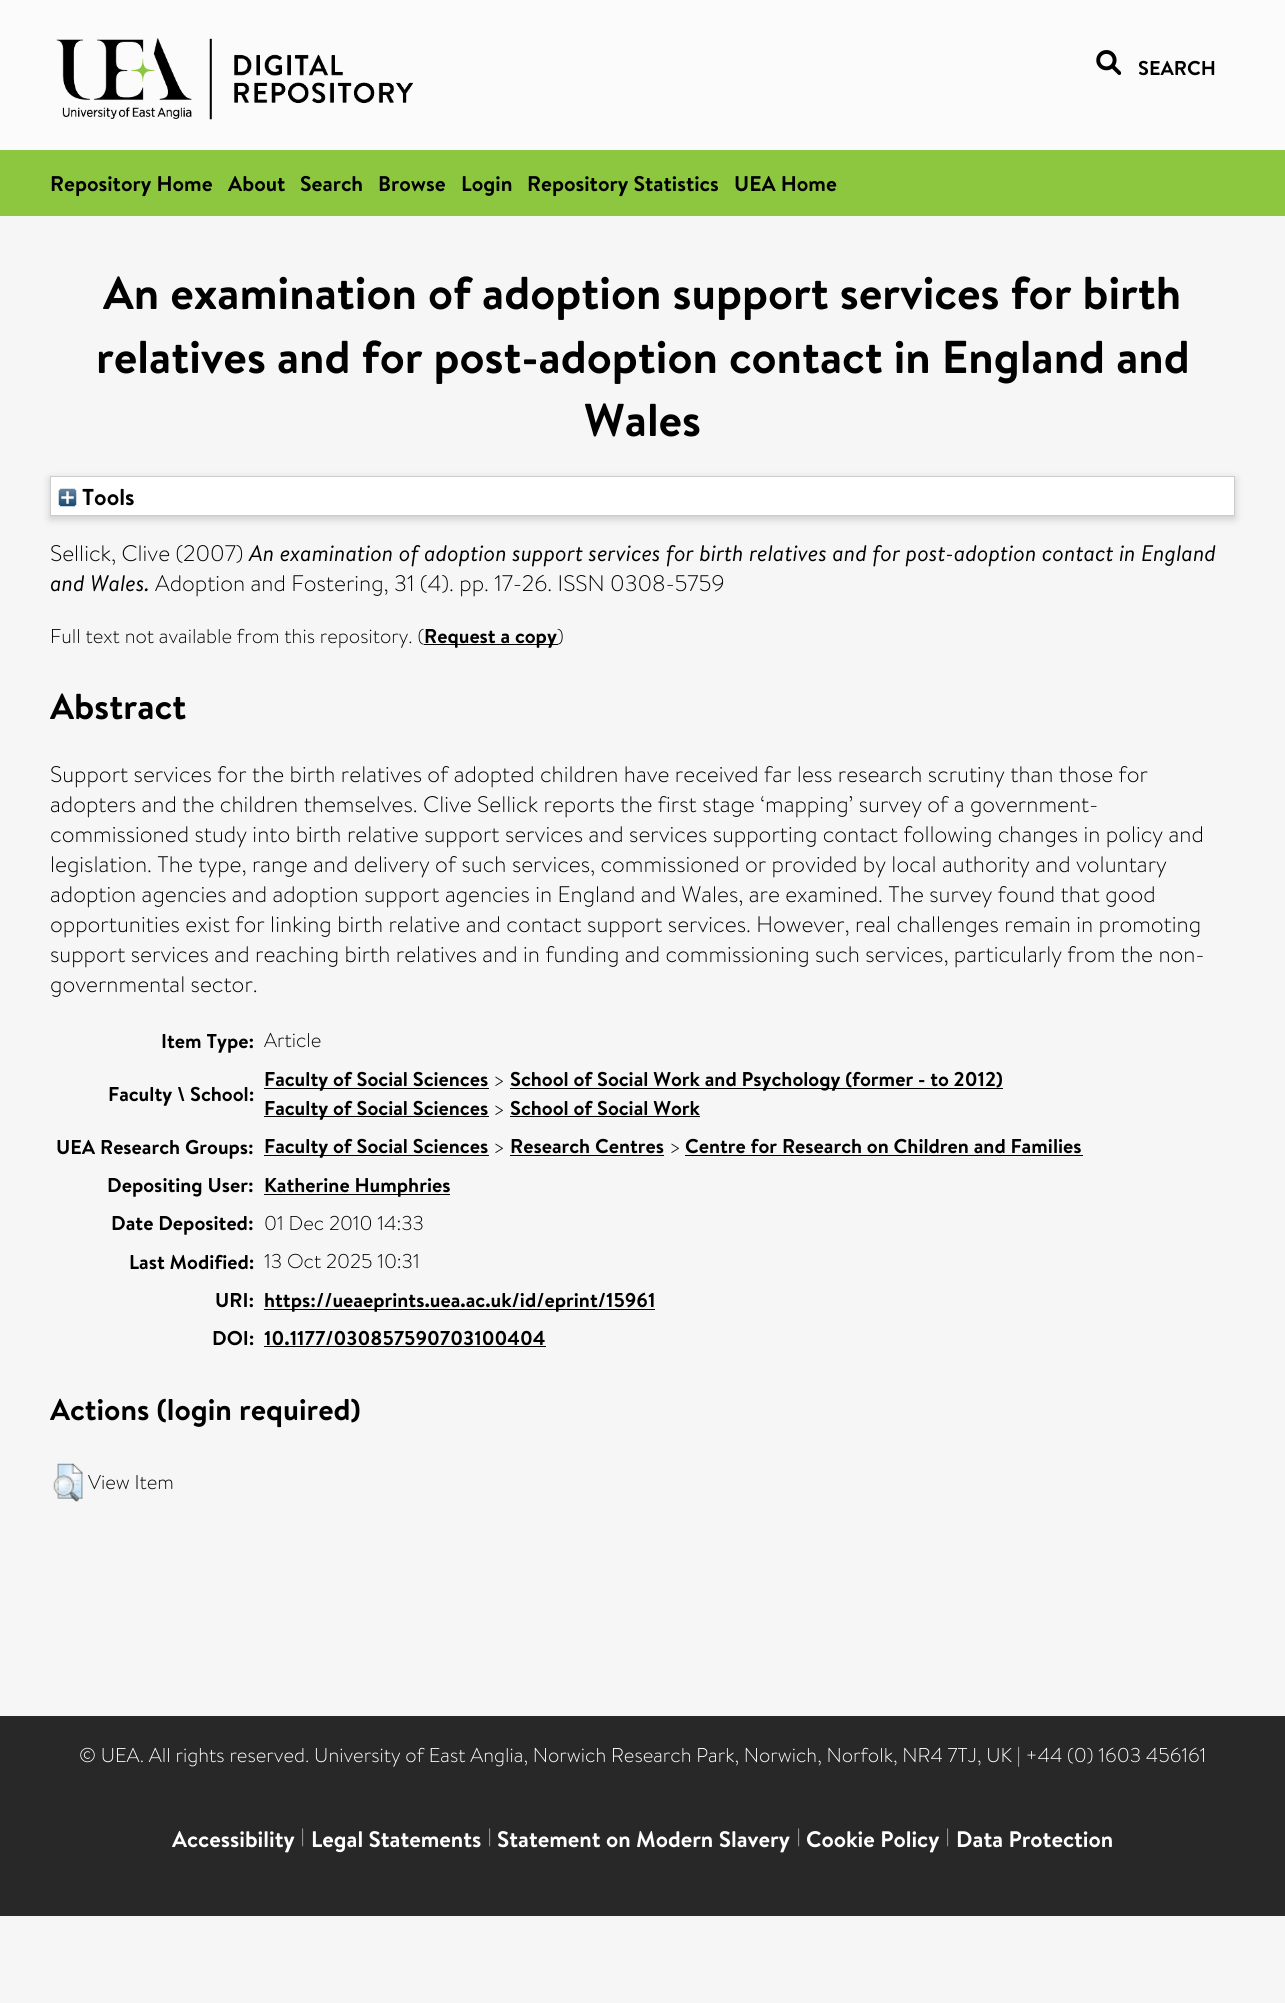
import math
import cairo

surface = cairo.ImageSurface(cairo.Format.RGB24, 1285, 2003)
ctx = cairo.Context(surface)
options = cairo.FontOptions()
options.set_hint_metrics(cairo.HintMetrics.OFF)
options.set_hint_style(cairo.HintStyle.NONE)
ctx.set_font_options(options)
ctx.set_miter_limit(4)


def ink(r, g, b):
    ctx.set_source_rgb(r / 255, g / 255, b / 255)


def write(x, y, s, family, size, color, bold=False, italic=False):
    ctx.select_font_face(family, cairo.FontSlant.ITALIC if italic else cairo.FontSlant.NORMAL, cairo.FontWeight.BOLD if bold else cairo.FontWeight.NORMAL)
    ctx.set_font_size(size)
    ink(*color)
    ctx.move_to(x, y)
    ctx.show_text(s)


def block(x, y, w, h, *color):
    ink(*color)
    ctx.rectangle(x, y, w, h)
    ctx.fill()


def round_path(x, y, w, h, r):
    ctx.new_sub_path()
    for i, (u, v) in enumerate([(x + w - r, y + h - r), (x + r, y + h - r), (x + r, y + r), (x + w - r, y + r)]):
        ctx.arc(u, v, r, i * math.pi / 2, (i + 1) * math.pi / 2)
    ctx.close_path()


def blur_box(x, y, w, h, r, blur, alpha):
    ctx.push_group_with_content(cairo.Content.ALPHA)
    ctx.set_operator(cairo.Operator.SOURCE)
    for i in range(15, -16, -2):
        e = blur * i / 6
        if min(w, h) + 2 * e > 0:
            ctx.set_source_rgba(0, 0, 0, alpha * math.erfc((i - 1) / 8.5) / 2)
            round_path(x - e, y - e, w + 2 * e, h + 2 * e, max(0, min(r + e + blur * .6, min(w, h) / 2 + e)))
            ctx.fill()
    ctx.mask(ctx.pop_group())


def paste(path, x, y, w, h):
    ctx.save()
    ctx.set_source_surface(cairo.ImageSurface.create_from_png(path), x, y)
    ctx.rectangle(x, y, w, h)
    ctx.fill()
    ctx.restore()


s1 = dict(family="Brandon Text", size=20, color=(0, 0, 0), bold=True)
s2 = dict(family="Brandon Text", size=21.25, color=(0, 0, 0), bold=True)
s3 = dict(family="Brandon Text", size=46, color=(0, 0, 0), bold=True)
s4 = dict(family="Brandon Text", size=23, color=(0, 0, 0), bold=True)
s5 = dict(family="Brandon Text Light", size=22.5, color=(0, 0, 0))
s6 = dict(family="Brandon Text", size=22.5, color=(0, 0, 0), italic=True)
s7 = dict(family="Brandon Text Light", size=20, color=(0, 0, 0))
s8 = dict(family="Brandon Text", size=36, color=(0, 0, 0), bold=True)
s9 = dict(family="Brandon Text", size=30, color=(0, 0, 0), bold=True)
s10 = dict(family="Brandon Text Light", size=20, color=(255, 255, 255))
s11 = dict(family="Brandon Text", size=22.5, color=(255, 255, 255), bold=True)
s12 = dict(family="Brandon Text Light", size=18, color=(255, 255, 255))

ink(246, 246, 246)
ctx.paint()
block(0, 0, 1285, 150, 251, 251, 251)
paste("pic1.png", 56, 38, 357, 82)
paste("pic2.png", 1096, 50, 25, 25)
write(1138, 75, "SEARCH", **s1)
block(0, 150, 1285, 66, 141, 198, 63)
write(50, 191, "Repository Home", **s2)
write(228, 191, "About", **s2)
write(300, 191, "Search", **s2)
write(378, 191, "Browse", **s2)
write(461, 191, "Login", **s2)
write(527, 191, "Repository Statistics", **s2)
write(734, 191, "UEA Home", **s2)
write(103, 309, "An examination of adoption support services for birth", **s3)
write(96, 373, "relatives and for post-adoption contact in England and", **s3)
write(584, 436, "Wales", **s3)
ink(100, 100, 100)
blur_box(50, 479, 1185, 40, 0, 4, 0.3)
ink(255, 255, 255)
ctx.rectangle(50.5, 476.5, 1184, 39)
ctx.fill_preserve()
ink(204, 204, 204)
ctx.set_line_width(1)
ctx.stroke()
paste("pic3.png", 58, 488, 19, 19)
write(82, 505, "Tools", **s4)
write(50, 561, "Sellick, Clive (2007)", **s5)
write(249, 561, "An examination of adoption support services for birth relatives and for post-adoption contact in England", **s6)
write(50, 591, "and Wales.", **s6)
write(155, 591, "Adoption and Fostering, 31 (4). pp. 17-26. ISSN 0308-5759", **s5)
write(50, 643, "Full text not available from this repository. (", **s7)
block(424, 644, 134, 1, 0, 0, 0)
write(424, 643, "Request a copy", **s1)
write(557, 643, ")", **s7)
write(50, 719, "Abstract", **s8)
write(50, 782, "Support services for the birth relatives of adopted children have received far less research scrutiny than those for", **s5)
write(50, 812, "adopters and the children themselves. Clive Sellick reports the first stage ‘mapping’ survey of a government-", **s5)
write(50, 842, "commissioned study into birth relative support services and services supporting contact following changes in policy and", **s5)
write(50, 872, "legislation. The type, range and delivery of such services, commissioned or provided by local authority and voluntary", **s5)
write(50, 902, "adoption agencies and adoption support agencies in England and Wales, are examined. The survey found that good", **s5)
write(50, 932, "opportunities exist for linking birth relative and contact support services. However, real challenges remain in promoting", **s5)
write(50, 962, "support services and reaching birth relatives and in funding and commissioning such services, particularly from the non-", **s5)
write(50, 992, "governmental sector.", **s5)
write(161, 1048, "Item Type:", **s1)
write(264, 1047, "Article", **s7)
write(108, 1101, "Faculty \\ School:", **s1)
block(264, 1088, 225, 1, 0, 0, 0)
write(264, 1086, "Faculty of Social Sciences", **s1)
write(493, 1086, ">", **s7)
block(510, 1088, 493, 1, 0, 0, 0)
write(510, 1086, "School of Social Work and Psychology (former - to 2012)", **s1)
block(264, 1116, 225, 1, 0, 0, 0)
write(264, 1115, "Faculty of Social Sciences", **s1)
write(493, 1115, ">", **s7)
write(510, 1115, "School of Social Work", **s1)
block(510, 1116, 190, 1, 0, 0, 0)
write(56, 1154, "UEA Research Groups:", **s1)
block(264, 1155, 225, 1, 0, 0, 0)
write(264, 1153, "Faculty of Social Sciences", **s1)
write(493, 1153, ">", **s7)
write(510, 1153, "Research Centres", **s1)
block(510, 1155, 154, 1, 0, 0, 0)
write(669, 1153, ">", **s7)
write(685, 1153, "Centre for Research on Children and Families", **s1)
block(685, 1155, 398, 1, 0, 0, 0)
write(107, 1192, "Depositing User:", **s1)
block(264, 1194, 186, 1, 0, 0, 0)
write(264, 1192, "Katherine Humphries", **s1)
write(111, 1230, "Date Deposited:", **s1)
write(264, 1230, "01 Dec 2010 14:33", **s7)
write(129, 1269, "Last Modified:", **s1)
write(264, 1268, "13 Oct 2025 10:31", **s7)
write(215, 1307, "URI:", **s1)
block(264, 1309, 391, 1, 0, 0, 0)
write(264, 1307, "https://ueaeprints.uea.ac.uk/id/eprint/15961", **s1)
write(212, 1345, "DOI:", **s1)
write(264, 1345, "10.1177/030857590703100404", **s1)
block(264, 1346, 282, 1, 0, 0, 0)
write(50, 1420, "Actions (login required)", **s9)
paste("pic4.png", 53, 1463, 30, 39)
write(88, 1489, "View Item", **s7)
block(0, 1716, 1285, 200, 40, 40, 40)
write(79, 1762, "© UEA. All rights reserved. University of East Anglia, Norwich Research Park, Norwich, Norfolk, NR4 7TJ, UK | +44 (0) 1603 456161", **s10)
write(172, 1847, "Accessibility", **s11)
write(301, 1842, "|", **s12)
write(311, 1847, "Legal Statements", **s11)
write(488, 1842, "|", **s12)
write(497, 1847, "Statement on Modern Slavery", **s11)
write(797, 1842, "|", **s12)
write(806, 1847, "Cookie Policy", **s11)
write(946, 1842, "|", **s12)
write(956, 1847, "Data Protection", **s11)
surface.write_to_png("screenshot.png")
